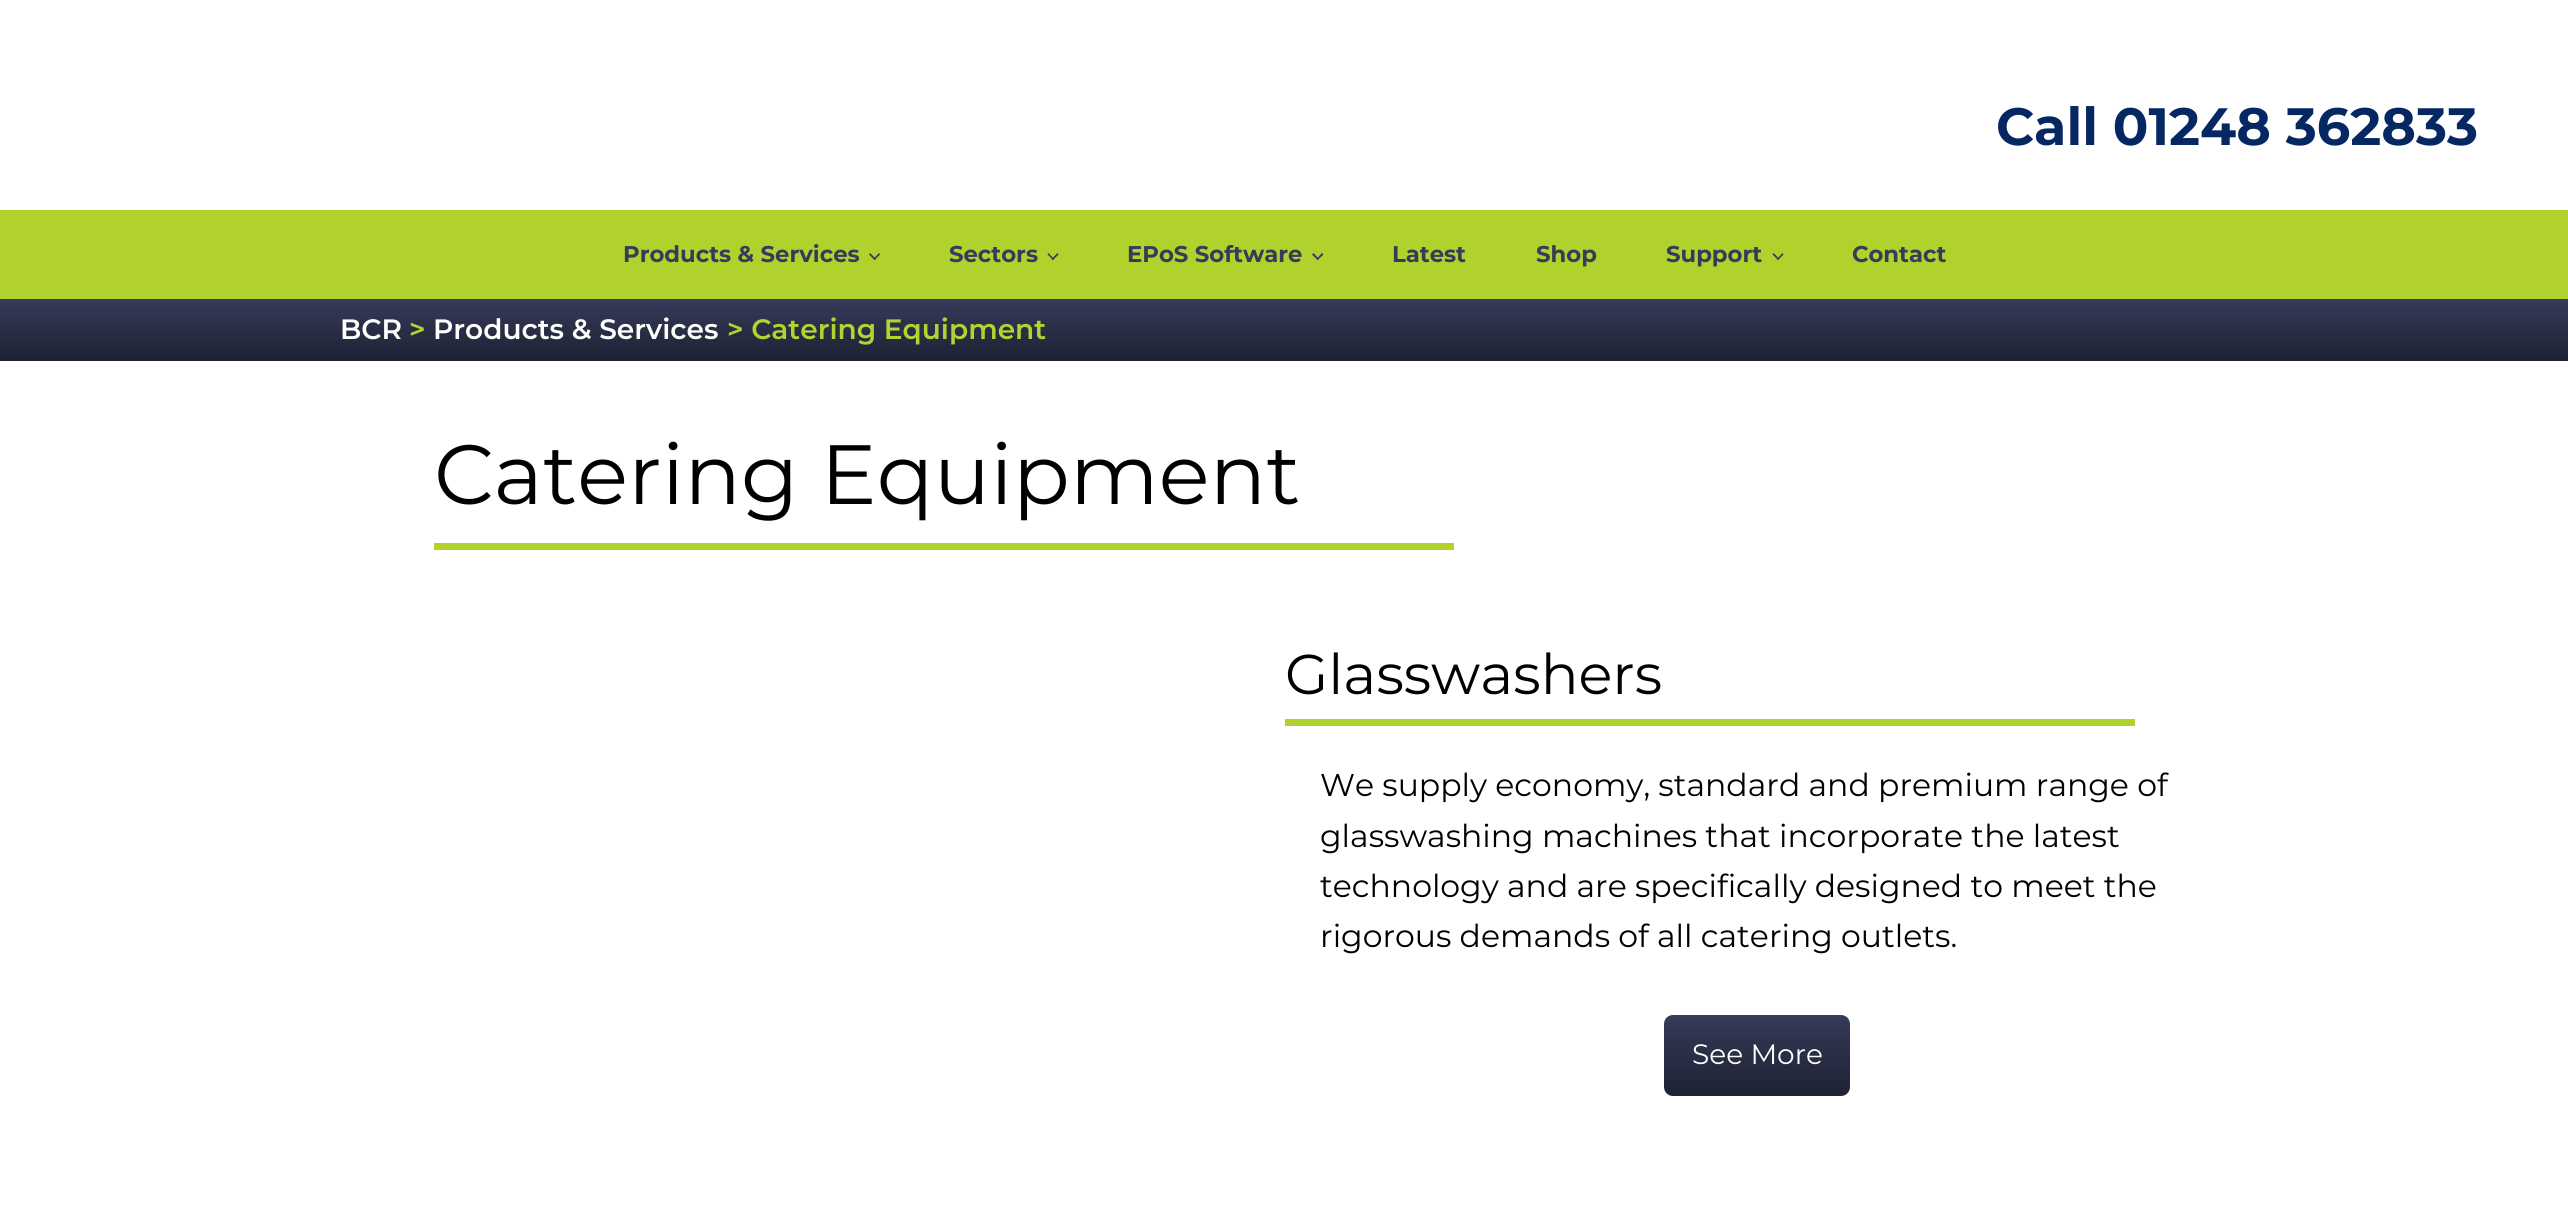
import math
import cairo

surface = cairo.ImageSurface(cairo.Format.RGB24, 2568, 1227)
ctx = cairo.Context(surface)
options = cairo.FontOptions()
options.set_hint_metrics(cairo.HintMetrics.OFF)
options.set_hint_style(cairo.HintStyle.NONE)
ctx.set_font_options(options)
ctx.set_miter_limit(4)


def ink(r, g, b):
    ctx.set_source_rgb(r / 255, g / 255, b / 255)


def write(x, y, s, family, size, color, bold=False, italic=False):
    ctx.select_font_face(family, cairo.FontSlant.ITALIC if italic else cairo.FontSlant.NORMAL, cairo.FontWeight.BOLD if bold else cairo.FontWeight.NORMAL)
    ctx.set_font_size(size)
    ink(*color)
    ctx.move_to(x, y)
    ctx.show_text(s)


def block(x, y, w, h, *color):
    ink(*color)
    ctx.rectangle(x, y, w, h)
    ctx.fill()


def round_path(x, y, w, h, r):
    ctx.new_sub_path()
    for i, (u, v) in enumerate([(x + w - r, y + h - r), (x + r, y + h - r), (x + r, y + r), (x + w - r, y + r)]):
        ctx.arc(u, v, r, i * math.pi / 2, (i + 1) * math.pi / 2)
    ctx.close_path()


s1 = dict(family="Montserrat", size=52.5, color=(5, 40, 99), bold=True)
s2 = dict(family="Montserrat", size=22.75, color=(53, 59, 89), bold=True)
s3 = dict(family="Montserrat SemiBold", size=28, color=(255, 255, 255))
s4 = dict(family="Montserrat SemiBold", size=28, color=(178, 212, 49))
s5 = dict(family="Montserrat", size=84, color=(0, 0, 0))
s6 = dict(family="Montserrat", size=56, color=(0, 0, 0))
s7 = dict(family="Montserrat", size=31.5, color=(0, 0, 0))
s8 = dict(family="Montserrat", size=28, color=(255, 255, 255))

ink(255, 255, 255)
ctx.paint()
write(1996, 145, "Call 01248 362833", **s1)
block(0, 210, 2568, 89, 177, 209, 45)
write(623, 262, "Products & Services", **s2)
ctx.new_path()
ctx.move_to(880, 254.5)
ctx.line_to(874.5, 260)
ctx.line_to(873.5, 259)
ctx.line_to(879, 253)
ctx.close_path()
ctx.fill()
ctx.new_path()
ctx.move_to(876, 259)
ctx.line_to(874.5, 260)
ctx.line_to(869, 254.5)
ctx.line_to(870, 253)
ctx.close_path()
ctx.fill()
write(949, 262, "Sectors", **s2)
ctx.new_path()
ctx.move_to(1058.5, 254.5)
ctx.line_to(1053, 260)
ctx.line_to(1051.5, 259)
ctx.line_to(1057.5, 253)
ctx.close_path()
ctx.fill()
ctx.new_path()
ctx.move_to(1054, 259)
ctx.line_to(1053, 260)
ctx.line_to(1047.5, 254.5)
ctx.line_to(1048.5, 253)
ctx.close_path()
ctx.fill()
write(1127, 262, "EPoS Software", **s2)
ctx.new_path()
ctx.move_to(1323.5, 254.5)
ctx.line_to(1317.5, 260)
ctx.line_to(1316.5, 259)
ctx.line_to(1322, 253)
ctx.close_path()
ctx.fill()
ctx.new_path()
ctx.move_to(1319, 259)
ctx.line_to(1317.5, 260)
ctx.line_to(1312, 254.5)
ctx.line_to(1313.5, 253)
ctx.close_path()
ctx.fill()
write(1392, 262, "Latest", **s2)
write(1536, 262, "Shop", **s2)
write(1666, 262, "Support", **s2)
ctx.new_path()
ctx.move_to(1783.5, 254.5)
ctx.line_to(1778, 260)
ctx.line_to(1777, 259)
ctx.line_to(1782.5, 253)
ctx.close_path()
ctx.fill()
ctx.new_path()
ctx.move_to(1779.5, 259)
ctx.line_to(1778, 260)
ctx.line_to(1772.5, 254.5)
ctx.line_to(1773.5, 253)
ctx.close_path()
ctx.fill()
write(1852, 262, "Contact", **s2)
gradient = cairo.LinearGradient(1285, 299, 1285, 361)
gradient.add_color_stop_rgba(0, 0.208, 0.231, 0.349, 1)
gradient.add_color_stop_rgba(1, 0.118, 0.133, 0.2, 1)
ctx.set_source(gradient)
ctx.rectangle(0, 299, 2568, 62)
ctx.fill()
write(340, 339, "BCR", **s3)
write(409, 339, ">", **s4)
write(433, 339, "Products & Services", **s3)
write(727, 339, "> Catering Equipment", **s4)
block(434, 543, 1020, 7, 177, 209, 45)
write(434, 504, "Catering Equipment", **s5)
block(1285, 719, 850, 7, 177, 209, 45)
write(1285, 694, "Glasswashers", **s6)
write(1320, 796, "We supply economy, standard and premium range of", **s7)
write(1320, 847, "glasswashing machines that incorporate the latest", **s7)
write(1320, 897, "technology and are specifically designed to meet the", **s7)
write(1320, 947, "rigorous demands of all catering outlets.", **s7)
gradient = cairo.LinearGradient(1757, 1015, 1757, 1096)
gradient.add_color_stop_rgba(0, 0.208, 0.231, 0.349, 1)
gradient.add_color_stop_rgba(1, 0.118, 0.133, 0.2, 1)
ctx.set_source(gradient)
round_path(1664, 1015, 186, 81, 9)
ctx.fill()
write(1692, 1064, "See More", **s8)
surface.write_to_png("screenshot.png")
